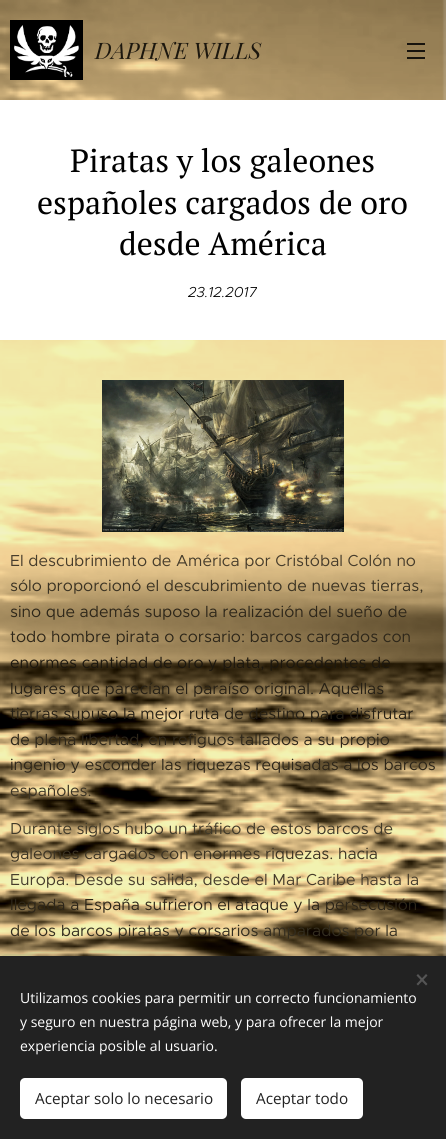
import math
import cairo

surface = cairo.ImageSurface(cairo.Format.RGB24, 446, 1139)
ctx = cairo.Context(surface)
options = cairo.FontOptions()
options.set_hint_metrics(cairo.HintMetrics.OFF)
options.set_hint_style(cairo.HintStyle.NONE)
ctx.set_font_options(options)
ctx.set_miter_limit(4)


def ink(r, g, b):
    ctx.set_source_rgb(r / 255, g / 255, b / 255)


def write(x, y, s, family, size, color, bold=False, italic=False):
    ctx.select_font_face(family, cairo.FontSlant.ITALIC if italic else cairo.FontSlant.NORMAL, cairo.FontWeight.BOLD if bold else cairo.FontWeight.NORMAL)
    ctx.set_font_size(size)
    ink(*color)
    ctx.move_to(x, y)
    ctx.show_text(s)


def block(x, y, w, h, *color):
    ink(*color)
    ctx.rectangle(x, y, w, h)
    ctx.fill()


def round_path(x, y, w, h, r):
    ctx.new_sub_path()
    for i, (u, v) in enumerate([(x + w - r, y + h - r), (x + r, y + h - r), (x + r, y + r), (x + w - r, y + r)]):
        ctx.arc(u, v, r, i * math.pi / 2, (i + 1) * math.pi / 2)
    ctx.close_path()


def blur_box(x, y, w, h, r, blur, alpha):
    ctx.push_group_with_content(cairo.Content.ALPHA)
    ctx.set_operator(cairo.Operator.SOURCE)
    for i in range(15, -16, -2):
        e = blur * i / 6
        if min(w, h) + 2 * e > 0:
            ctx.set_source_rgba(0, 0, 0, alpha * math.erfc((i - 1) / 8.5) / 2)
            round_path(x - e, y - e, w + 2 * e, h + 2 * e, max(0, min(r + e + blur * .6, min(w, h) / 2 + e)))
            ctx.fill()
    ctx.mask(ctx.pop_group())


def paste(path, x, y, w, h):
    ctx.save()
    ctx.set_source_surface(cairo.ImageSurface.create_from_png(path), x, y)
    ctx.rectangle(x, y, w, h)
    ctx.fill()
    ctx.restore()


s1 = dict(family="Playfair Display", size=22.75, color=(28, 23, 14), italic=True)
s2 = dict(family="PT Serif", size=32, color=(0, 0, 0))
s3 = dict(family="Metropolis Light", size=14.5, color=(0, 0, 0), italic=True)
s4 = dict(family="Metropolis", size=16, color=(70, 60, 43))
s5 = dict(family="Metropolis", size=16, color=(59, 51, 35))
s6 = dict(family="Metropolis", size=16, color=(45, 38, 25))
s7 = dict(family="Metropolis", size=16, color=(28, 23, 14))
s8 = dict(family="Metropolis", size=16, color=(38, 32, 21))
s9 = dict(family="Metropolis", size=16, color=(64, 57, 40))
s10 = dict(family="Metropolis", size=16, color=(51, 45, 31))
s11 = dict(family="Open Sans", size=14, color=(255, 255, 255))
s12 = dict(family="Open Sans", size=15.25, color=(34, 34, 34))

ink(255, 255, 255)
ctx.paint()
paste("pic1.png", 0, 0, 446, 100)
paste("pic2.png", 10, 20, 73, 60)
write(95, 59, "DAPHNE WILLS", **s1)
block(407, 50, 18, 2, 23, 19, 13)
block(407, 43, 18, 2, 23, 19, 13)
ctx.set_source_rgba(0, 0, 0, 0.85)
ctx.rectangle(407, 57, 18, 2)
ctx.fill()
write(70, 172, "Piratas y los galeones", **s2)
write(37, 214, "españoles cargados de oro", **s2)
write(119, 255, "desde América", **s2)
write(188, 297, "23.12.2017", **s3)
paste("pic3.png", 0, 340, 446, 616)
paste("pic4.png", 102, 380, 242, 152)
write(10, 566, "El descubrimiento de América por Cristóbal Colón no", **s4)
write(10, 591, "sólo proporcionó el descubrimiento de nuevas tierras,", **s5)
write(10, 617, "sino que además suposo la realización del sueño de", **s6)
write(10, 642, "todo hombre pirata o corsario: barcos cargados con", **s6)
write(10, 668, "enormes cantidad de oro y plata, procedentes de", **s7)
write(10, 694, "lugares que parecían el paraíso original. Aquellas", **s8)
write(10, 719, "tierras supuso la mejor ruta de destino para disfrutar", **s8)
write(10, 745, "de plena libertad, en refiguos tallados a su propio", **s6)
write(10, 770, "ingenio y esconder las riquezas requisadas a los barcos", **s6)
write(10, 796, "españoles.", **s5)
write(10, 834, "Durante siglos hubo un tráfico de estos barcos de", **s9)
write(10, 859, "galeones cargados con enormes riquezas. hacia", **s5)
write(10, 885, "Europa. Desde su salida, desde el Mar Caribe hasta la", **s4)
write(10, 910, "llegada a España sufrieron el ataque y la persecusión", **s6)
write(10, 936, "de los barcos piratas y corsarios amparados por la", **s10)
ink(0, 0, 0)
blur_box(0, 956, 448, 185, 0, 12.5, 0.33)
block(0, 956, 446, 183, 34, 34, 34)
ink(85, 85, 85)
ctx.new_path()
ctx.move_to(416.5, 984)
ctx.line_to(426, 974)
ctx.line_to(427.5, 975.5)
ctx.line_to(418, 985.5)
ctx.close_path()
ctx.fill()
ctx.new_path()
ctx.move_to(418, 974)
ctx.line_to(427.5, 984)
ctx.line_to(426, 985.5)
ctx.line_to(416.5, 975.5)
ctx.close_path()
ctx.fill()
write(20, 1003, "Utilizamos cookies para permitir un correcto funcionamiento", **s11)
write(20, 1027, "y seguro en nuestra página web, y para ofrecer la mejor", **s11)
write(20, 1051, "experiencia posible al usuario.", **s11)
round_path(20, 1078, 207, 41, 5)
ctx.fill()
write(35, 1104, "Aceptar solo lo necesario", **s12)
ink(255, 255, 255)
round_path(241, 1078, 122, 41, 5)
ctx.fill()
write(256, 1104, "Aceptar todo", **s12)
surface.write_to_png("screenshot.png")
